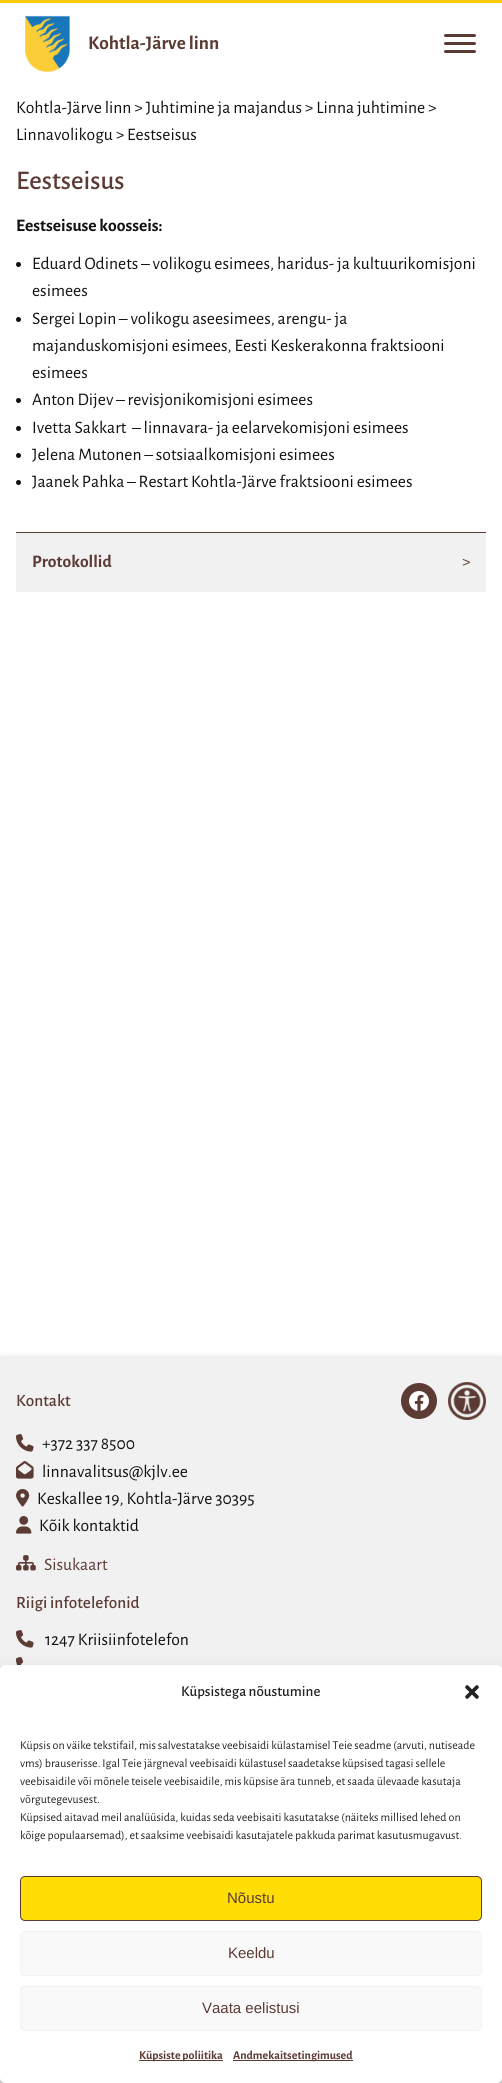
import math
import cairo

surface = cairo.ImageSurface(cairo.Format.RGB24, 502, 2083)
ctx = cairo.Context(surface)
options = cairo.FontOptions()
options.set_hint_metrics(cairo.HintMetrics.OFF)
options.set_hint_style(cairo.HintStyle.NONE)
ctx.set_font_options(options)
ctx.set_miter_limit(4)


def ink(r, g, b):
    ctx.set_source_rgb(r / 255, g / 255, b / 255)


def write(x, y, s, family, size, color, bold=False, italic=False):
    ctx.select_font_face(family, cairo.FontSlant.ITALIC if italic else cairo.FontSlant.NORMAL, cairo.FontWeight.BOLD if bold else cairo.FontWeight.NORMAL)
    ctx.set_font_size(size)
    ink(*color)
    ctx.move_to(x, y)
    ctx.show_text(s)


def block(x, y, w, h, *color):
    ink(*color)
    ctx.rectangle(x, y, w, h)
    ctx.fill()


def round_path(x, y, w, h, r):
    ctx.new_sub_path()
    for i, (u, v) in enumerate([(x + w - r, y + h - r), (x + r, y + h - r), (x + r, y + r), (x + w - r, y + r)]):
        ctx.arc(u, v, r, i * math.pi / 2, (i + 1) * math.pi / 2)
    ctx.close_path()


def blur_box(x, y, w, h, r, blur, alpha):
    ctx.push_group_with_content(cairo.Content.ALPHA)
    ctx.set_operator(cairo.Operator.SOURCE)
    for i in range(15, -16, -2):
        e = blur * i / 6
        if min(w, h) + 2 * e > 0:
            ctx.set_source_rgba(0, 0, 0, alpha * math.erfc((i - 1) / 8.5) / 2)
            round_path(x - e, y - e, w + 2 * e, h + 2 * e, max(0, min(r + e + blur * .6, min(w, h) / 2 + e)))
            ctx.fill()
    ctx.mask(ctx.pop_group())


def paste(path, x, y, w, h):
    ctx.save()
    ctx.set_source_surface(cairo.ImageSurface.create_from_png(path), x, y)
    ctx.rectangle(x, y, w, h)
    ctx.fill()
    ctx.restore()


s1 = dict(family="Alegreya Sans", size=19.25, color=(92, 59, 53), bold=True)
s2 = dict(family="Alegreya Sans", size=17.6, color=(17, 17, 17))
s3 = dict(family="Alegreya Sans Medium", size=27, color=(92, 59, 53))
s4 = dict(family="Alegreya Sans", size=17.6, color=(17, 17, 17), bold=True)
s5 = dict(family="Alegreya Sans", size=17.6, color=(92, 59, 53), bold=True)
s6 = dict(family="Alegreya Sans", size=17.6, color=(92, 59, 53))
s7 = dict(family="Alegreya Sans Medium", size=17.25, color=(92, 59, 53))
s8 = dict(family="Alegreya Sans Medium", size=15, color=(34, 34, 34))
s9 = dict(family="Alegreya Sans", size=12, color=(34, 34, 34))
s10 = dict(family="Liberation Sans", size=15, color=(92, 59, 53))
s11 = dict(family="Alegreya Sans", size=12, color=(92, 59, 53), bold=True)

ink(255, 255, 255)
ctx.paint()
block(0, 0, 502, 3, 255, 203, 5)
paste("pic1.png", 25, 15, 45, 58)
write(88, 49, "Kohtla-Järve linn", **s1)
round_path(444, 34, 32, 3, 1.5)
ctx.fill()
round_path(444, 42, 32, 3, 1.5)
ctx.fill()
round_path(444, 50, 32, 3, 1.5)
ctx.fill()
write(16, 113, "Kohtla-Järve linn > Juhtimine ja majandus > Linna juhtimine >", **s2)
write(16, 140, "Linnavolikogu > Eestseisus", **s2)
write(16, 189, "Eestseisus", **s3)
write(16, 231, "Eestseisuse koosseis:", **s4)
ctx.new_path()
ctx.arc(18.5, 264.5, 2.5, 0, 2 * math.pi)
ctx.fill()
write(32, 269, "Eduard Odinets – volikogu esimees, haridus- ja kultuurikomisjoni", **s2)
write(32, 296, "esimees", **s2)
ctx.new_path()
ctx.arc(18.5, 319.5, 2.5, 0, 2 * math.pi)
ctx.fill()
write(32, 324, "Sergei Lopin – volikogu aseesimees, arengu- ja", **s2)
write(32, 351, "majanduskomisjoni esimees, Eesti Keskerakonna fraktsiooni", **s2)
write(32, 378, "esimees", **s2)
ctx.new_path()
ctx.arc(18.5, 400.5, 2.5, 0, 2 * math.pi)
ctx.fill()
write(32, 405, "Anton Dijev – revisjonikomisjoni esimees", **s2)
ctx.new_path()
ctx.arc(18.5, 428.5, 2.5, 0, 2 * math.pi)
ctx.fill()
write(32, 433, "Ivetta Sakkart  – linnavara- ja eelarvekomisjoni esimees", **s2)
ctx.new_path()
ctx.arc(18.5, 455.5, 2.5, 0, 2 * math.pi)
ctx.fill()
write(32, 460, "Jelena Mutonen – sotsiaalkomisjoni esimees", **s2)
ctx.new_path()
ctx.arc(18.5, 482.5, 2.5, 0, 2 * math.pi)
ctx.fill()
write(32, 487, "Jaanek Pahka – Restart Kohtla-Järve fraktsiooni esimees", **s2)
block(16, 533, 470, 59, 241, 241, 241)
block(16, 532, 470, 1, 92, 59, 53)
write(32, 567, "Protokollid", **s5)
write(462, 567, ">", **s6)
ink(66, 66, 66)
blur_box(0, 1357, 502, 536, 0, 4, 0.12)
block(0, 1356, 502, 314, 241, 241, 241)
write(16, 1406, "Kontakt", **s7)
ctx.new_path()
ctx.arc(419, 1401, 18, 0, 2 * math.pi)
ctx.fill()
paste("pic2.png", 409, 1391, 20, 20)
paste("pic3.png", 448, 1382, 38, 38)
paste("pic4.png", 16, 1434, 18, 18)
write(42, 1449, "+372 337 8500", **s2)
paste("pic5.png", 16, 1461, 18, 18)
write(42, 1477, "linnavalitsus@kjlv.ee", **s2)
paste("pic6.png", 16, 1489, 14, 18)
write(37, 1504, "Keskallee 19, Kohtla-Järve 30395", **s2)
paste("pic7.png", 16, 1516, 16, 18)
write(39, 1531, "Kõik kontaktid", **s2)
paste("pic8.png", 16, 1555, 20, 16)
write(44, 1570, "Sisukaart", **s6)
write(16, 1608, "Riigi infotelefonid", **s7)
paste("pic4.png", 16, 1630, 18, 18)
write(45, 1645, "1247 Kriisiinfotelefon", **s2)
paste("pic9.png", 16, 1657, 8, 8)
ink(0, 0, 0)
blur_box(0, 1671, 502, 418, 5, 3, 0.23)
blur_box(0, 1675, 502, 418, 5, 10, 0.19)
ink(255, 255, 255)
round_path(0, 1665, 502, 418, 5)
ctx.fill()
write(181, 1696, "Küpsistega nõustumine", **s8)
paste("pic10.png", 465, 1685, 14, 14)
write(20, 1749, "Küpsis on väike tekstifail, mis salvestatakse veebisaidi külastamisel Teie seadme (arvuti, nutiseade", **s9)
write(20, 1767, "vms) brauserisse. Igal Teie järgneval veebisaidi külastusel saadetakse küpsised tagasi sellele", **s9)
write(20, 1785, "veebisaidile või mõnele teisele veebisaidile, mis küpsise ära tunneb, et saada ülevaade kasutaja", **s9)
write(20, 1803, "võrgutegevusest.", **s9)
write(20, 1821, "Küpsised aitavad meil analüüsida, kuidas seda veebisaiti kasutatakse (näiteks millised lehed on", **s9)
write(20, 1839, "kõige populaarsemad), et saaksime veebisaidi kasutajatele pakkuda parimat kasutusmugavust.", **s9)
ink(255, 222, 5)
round_path(20.5, 1876.5, 461, 44, 4.5)
ctx.fill_preserve()
ink(92, 59, 53)
ctx.set_line_width(1)
ctx.stroke()
write(227, 1903, "Nõustu", **s10)
ink(249, 249, 249)
round_path(20.5, 1931.5, 461, 44, 4.5)
ctx.fill_preserve()
ink(242, 242, 242)
ctx.stroke()
write(228, 1958, "Keeldu", **s10)
ink(249, 249, 249)
round_path(20.5, 1986.5, 461, 44, 4.5)
ctx.fill_preserve()
ink(242, 242, 242)
ctx.stroke()
write(202, 2013, "Vaata eelistusi", **s10)
block(139, 2060, 84, 1, 92, 59, 53)
write(139, 2059, "Küpsiste poliitika", **s11)
block(233, 2060, 120, 1, 92, 59, 53)
write(233, 2059, "Andmekaitsetingimused", **s11)
surface.write_to_png("screenshot.png")
